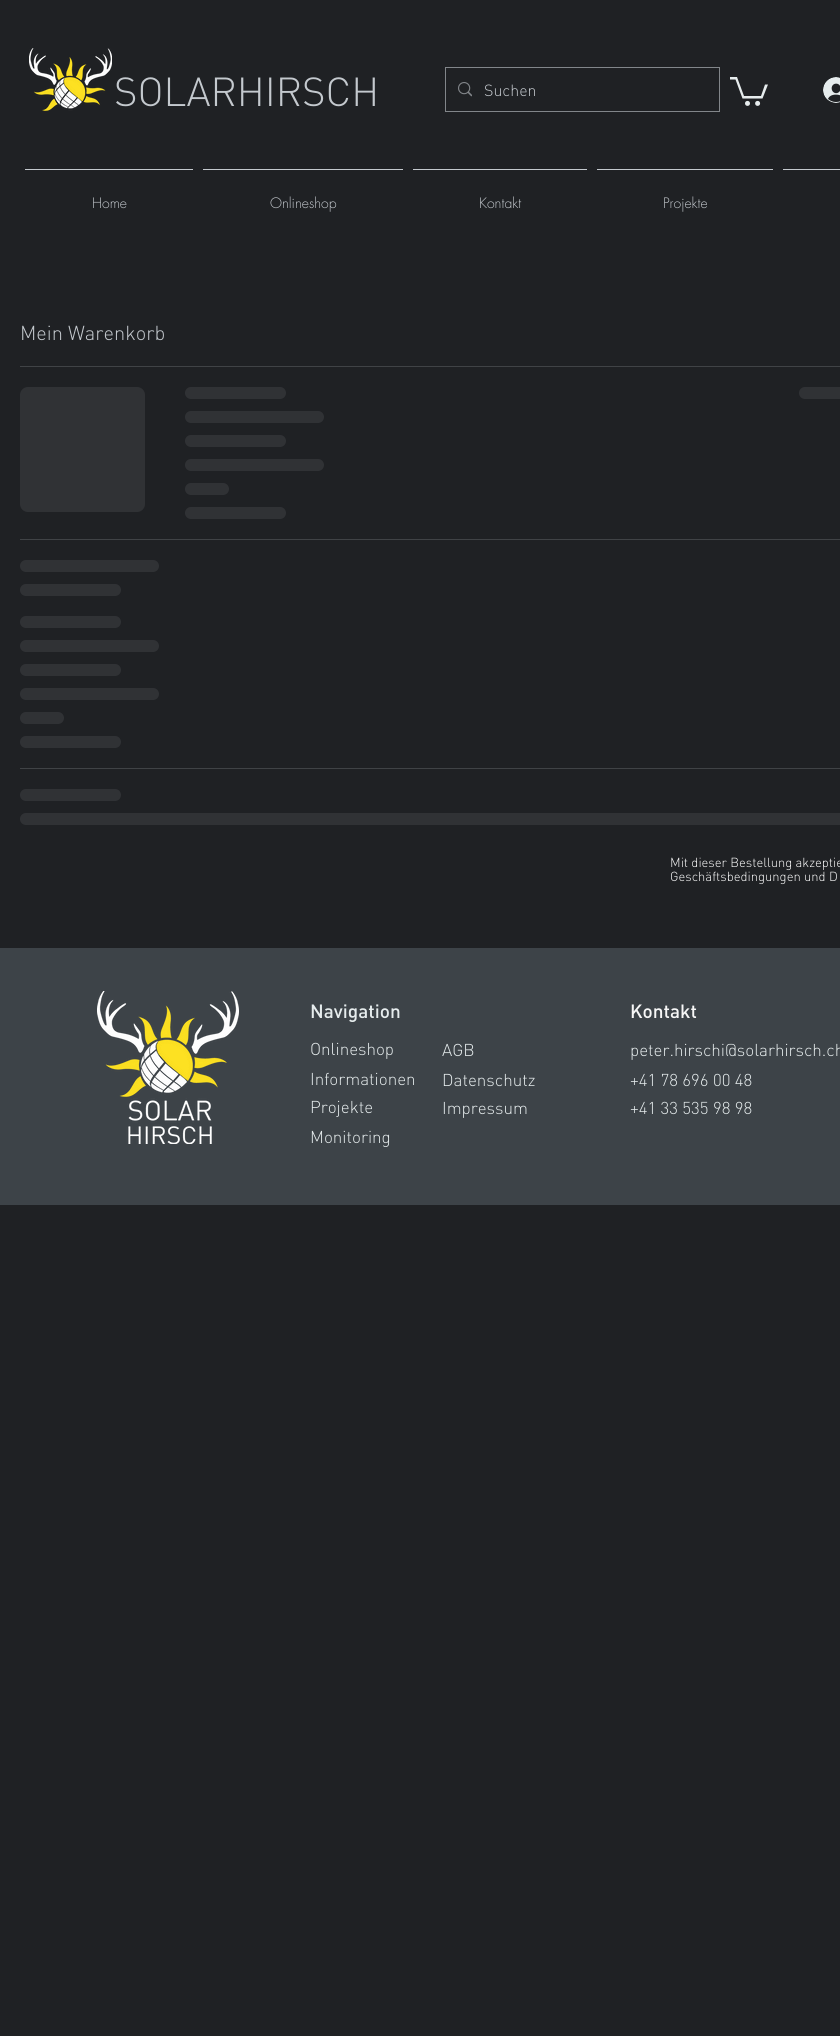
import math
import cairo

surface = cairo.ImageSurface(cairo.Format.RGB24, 840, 2036)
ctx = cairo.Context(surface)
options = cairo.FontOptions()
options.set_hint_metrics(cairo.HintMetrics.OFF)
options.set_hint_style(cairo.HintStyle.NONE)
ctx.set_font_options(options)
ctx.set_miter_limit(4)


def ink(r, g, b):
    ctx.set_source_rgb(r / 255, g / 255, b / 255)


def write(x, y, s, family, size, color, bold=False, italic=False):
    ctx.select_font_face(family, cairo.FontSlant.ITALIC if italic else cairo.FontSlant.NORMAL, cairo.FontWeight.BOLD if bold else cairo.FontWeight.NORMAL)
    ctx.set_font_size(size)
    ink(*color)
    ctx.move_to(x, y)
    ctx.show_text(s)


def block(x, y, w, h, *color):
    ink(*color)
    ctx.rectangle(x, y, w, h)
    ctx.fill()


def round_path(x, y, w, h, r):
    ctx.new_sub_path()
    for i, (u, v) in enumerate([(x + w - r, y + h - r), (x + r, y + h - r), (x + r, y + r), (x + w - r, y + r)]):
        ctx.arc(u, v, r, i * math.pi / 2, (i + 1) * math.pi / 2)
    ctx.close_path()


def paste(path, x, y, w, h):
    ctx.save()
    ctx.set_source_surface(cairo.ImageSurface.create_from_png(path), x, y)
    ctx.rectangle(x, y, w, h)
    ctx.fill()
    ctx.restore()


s1 = dict(family="DIN Light", size=40, color=(196, 201, 206))
s2 = dict(family="DIN Light", size=16, color=(196, 201, 206))
s3 = dict(family="futura Light", size=14, color=(196, 201, 206))
s4 = dict(family="DIN Light", size=20, color=(196, 201, 206))
s5 = dict(family="DIN Light", size=13, color=(255, 255, 255))
s6 = dict(family="DIN Medium", size=19, color=(230, 236, 237))
s7 = dict(family="DIN Medium", size=19, color=(247, 247, 247))
s8 = dict(family="DIN Light", size=17, color=(230, 236, 237))

ink(31, 33, 36)
ctx.paint()
paste("pic1.png", 29, 48, 83, 63)
write(114, 106, "SOLARHIRSCH", **s1)
ctx.rectangle(445.5, 67.5, 274, 44)
ink(130, 134, 138)
ctx.set_line_width(1)
ctx.stroke()
paste("pic2.png", 458, 82, 14, 15)
write(484, 96, "Suchen", **s2)
ink(230, 236, 237)
ctx.new_path()
ctx.move_to(768, 84.5)
ctx.line_to(762.5, 98.5)
ctx.line_to(742.5, 98.5)
ctx.line_to(735.5, 79.5)
ctx.line_to(730, 79.5)
ctx.line_to(730, 77)
ctx.line_to(737, 77)
ctx.line_to(744, 96)
ctx.line_to(761, 96)
ctx.line_to(765, 84.5)
ctx.fill()
ctx.arc(757.6, 103.4, 2.5, 0, 2 * math.pi)
ctx.fill()
ctx.arc(747.5, 103.4, 2.5, 0, 2 * math.pi)
ctx.fill()
paste("pic3.png", 823, 77, 17, 26)
block(783, 169, 57, 1, 196, 201, 206)
block(25, 169, 168, 1, 196, 201, 206)
write(92, 208, "Home", **s3)
block(203, 169, 200, 1, 196, 201, 206)
write(270, 208, "Onlineshop", **s3)
block(413, 169, 174, 1, 196, 201, 206)
write(479, 208, "Kontakt", **s3)
block(597, 169, 176, 1, 196, 201, 206)
write(663, 208, "Projekte", **s3)
block(20, 366, 820, 1, 64, 67, 70)
write(20, 340, "Mein Warenkorb", **s4)
gradient = cairo.LinearGradient(20, 450, 520, 450)
gradient.add_color_stop_rgba(0.25, 0.188, 0.196, 0.208, 1)
gradient.add_color_stop_rgba(0.37, 0.251, 0.263, 0.275, 1)
gradient.add_color_stop_rgba(0.63, 0.188, 0.196, 0.208, 1)
ctx.set_source(gradient)
round_path(20, 387, 125, 125, 8)
ctx.fill()
gradient = cairo.LinearGradient(185, 393, 589, 393)
gradient.add_color_stop_rgba(0.25, 0.188, 0.196, 0.208, 1)
gradient.add_color_stop_rgba(0.37, 0.251, 0.263, 0.275, 1)
gradient.add_color_stop_rgba(0.63, 0.188, 0.196, 0.208, 1)
ctx.set_source(gradient)
round_path(185, 387, 101, 12, 6)
ctx.fill()
gradient = cairo.LinearGradient(185, 417, 741, 417)
gradient.add_color_stop_rgba(0.25, 0.188, 0.196, 0.208, 1)
gradient.add_color_stop_rgba(0.37, 0.251, 0.263, 0.275, 1)
gradient.add_color_stop_rgba(0.63, 0.188, 0.196, 0.208, 1)
ctx.set_source(gradient)
round_path(185, 411, 139, 12, 6)
ctx.fill()
gradient = cairo.LinearGradient(185, 441, 589, 441)
gradient.add_color_stop_rgba(0.25, 0.188, 0.196, 0.208, 1)
gradient.add_color_stop_rgba(0.37, 0.251, 0.263, 0.275, 1)
gradient.add_color_stop_rgba(0.63, 0.188, 0.196, 0.208, 1)
ctx.set_source(gradient)
round_path(185, 435, 101, 12, 6)
ctx.fill()
gradient = cairo.LinearGradient(185, 465, 741, 465)
gradient.add_color_stop_rgba(0.25, 0.188, 0.196, 0.208, 1)
gradient.add_color_stop_rgba(0.37, 0.251, 0.263, 0.275, 1)
gradient.add_color_stop_rgba(0.63, 0.188, 0.196, 0.208, 1)
ctx.set_source(gradient)
round_path(185, 459, 139, 12, 6)
ctx.fill()
gradient = cairo.LinearGradient(185, 489, 361, 489)
gradient.add_color_stop_rgba(0.25, 0.188, 0.196, 0.208, 1)
gradient.add_color_stop_rgba(0.37, 0.251, 0.263, 0.275, 1)
gradient.add_color_stop_rgba(0.63, 0.188, 0.196, 0.208, 1)
ctx.set_source(gradient)
round_path(185, 483, 44, 12, 6)
ctx.fill()
gradient = cairo.LinearGradient(185, 513, 589, 513)
gradient.add_color_stop_rgba(0.25, 0.188, 0.196, 0.208, 1)
gradient.add_color_stop_rgba(0.37, 0.251, 0.263, 0.275, 1)
gradient.add_color_stop_rgba(0.63, 0.188, 0.196, 0.208, 1)
ctx.set_source(gradient)
round_path(185, 507, 101, 12, 6)
ctx.fill()
gradient = cairo.LinearGradient(799, 393, 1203, 393)
gradient.add_color_stop_rgba(0.25, 0.188, 0.196, 0.208, 1)
gradient.add_color_stop_rgba(0.37, 0.251, 0.263, 0.275, 1)
gradient.add_color_stop_rgba(0.63, 0.188, 0.196, 0.208, 1)
ctx.set_source(gradient)
round_path(799, 387, 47, 12, 6)
ctx.fill()
block(20, 539, 820, 1, 64, 67, 70)
gradient = cairo.LinearGradient(20, 566, 576, 566)
gradient.add_color_stop_rgba(0.25, 0.188, 0.196, 0.208, 1)
gradient.add_color_stop_rgba(0.37, 0.251, 0.263, 0.275, 1)
gradient.add_color_stop_rgba(0.63, 0.188, 0.196, 0.208, 1)
ctx.set_source(gradient)
round_path(20, 560, 139, 12, 6)
ctx.fill()
gradient = cairo.LinearGradient(20, 590, 424, 590)
gradient.add_color_stop_rgba(0.25, 0.188, 0.196, 0.208, 1)
gradient.add_color_stop_rgba(0.37, 0.251, 0.263, 0.275, 1)
gradient.add_color_stop_rgba(0.63, 0.188, 0.196, 0.208, 1)
ctx.set_source(gradient)
round_path(20, 584, 101, 12, 6)
ctx.fill()
gradient = cairo.LinearGradient(20, 622, 424, 622)
gradient.add_color_stop_rgba(0.25, 0.188, 0.196, 0.208, 1)
gradient.add_color_stop_rgba(0.37, 0.251, 0.263, 0.275, 1)
gradient.add_color_stop_rgba(0.63, 0.188, 0.196, 0.208, 1)
ctx.set_source(gradient)
round_path(20, 616, 101, 12, 6)
ctx.fill()
gradient = cairo.LinearGradient(20, 646, 576, 646)
gradient.add_color_stop_rgba(0.25, 0.188, 0.196, 0.208, 1)
gradient.add_color_stop_rgba(0.37, 0.251, 0.263, 0.275, 1)
gradient.add_color_stop_rgba(0.63, 0.188, 0.196, 0.208, 1)
ctx.set_source(gradient)
round_path(20, 640, 139, 12, 6)
ctx.fill()
gradient = cairo.LinearGradient(20, 670, 424, 670)
gradient.add_color_stop_rgba(0.25, 0.188, 0.196, 0.208, 1)
gradient.add_color_stop_rgba(0.37, 0.251, 0.263, 0.275, 1)
gradient.add_color_stop_rgba(0.63, 0.188, 0.196, 0.208, 1)
ctx.set_source(gradient)
round_path(20, 664, 101, 12, 6)
ctx.fill()
gradient = cairo.LinearGradient(20, 694, 576, 694)
gradient.add_color_stop_rgba(0.25, 0.188, 0.196, 0.208, 1)
gradient.add_color_stop_rgba(0.37, 0.251, 0.263, 0.275, 1)
gradient.add_color_stop_rgba(0.63, 0.188, 0.196, 0.208, 1)
ctx.set_source(gradient)
round_path(20, 688, 139, 12, 6)
ctx.fill()
gradient = cairo.LinearGradient(20, 718, 196, 718)
gradient.add_color_stop_rgba(0.25, 0.188, 0.196, 0.208, 1)
gradient.add_color_stop_rgba(0.37, 0.251, 0.263, 0.275, 1)
gradient.add_color_stop_rgba(0.63, 0.188, 0.196, 0.208, 1)
ctx.set_source(gradient)
round_path(20, 712, 44, 12, 6)
ctx.fill()
gradient = cairo.LinearGradient(20, 742, 424, 742)
gradient.add_color_stop_rgba(0.25, 0.188, 0.196, 0.208, 1)
gradient.add_color_stop_rgba(0.37, 0.251, 0.263, 0.275, 1)
gradient.add_color_stop_rgba(0.63, 0.188, 0.196, 0.208, 1)
ctx.set_source(gradient)
round_path(20, 736, 101, 12, 6)
ctx.fill()
block(20, 768, 820, 1, 64, 67, 70)
gradient = cairo.LinearGradient(20, 795, 424, 795)
gradient.add_color_stop_rgba(0.25, 0.188, 0.196, 0.208, 1)
gradient.add_color_stop_rgba(0.37, 0.251, 0.263, 0.275, 1)
gradient.add_color_stop_rgba(0.63, 0.188, 0.196, 0.208, 1)
ctx.set_source(gradient)
round_path(20, 789, 101, 12, 6)
ctx.fill()
gradient = cairo.LinearGradient(20, 819, 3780, 819)
gradient.add_color_stop_rgba(0.25, 0.188, 0.196, 0.208, 1)
gradient.add_color_stop_rgba(0.37, 0.251, 0.263, 0.275, 1)
gradient.add_color_stop_rgba(0.63, 0.188, 0.196, 0.208, 1)
ctx.set_source(gradient)
round_path(20, 813, 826, 12, 6)
ctx.fill()
write(670, 867, "Mit dieser Bestellung akzeptie", **s5)
write(670, 881, "Geschäftsbedingungen und D", **s5)
block(0, 948, 840, 257, 61, 67, 72)
paste("pic4.png", 97, 991, 142, 153)
write(310, 1018, "Navigation", **s6)
write(630, 1018, "Kontakt", **s7)
write(310, 1055, "Onlineshop", **s8)
write(442, 1056, "AGB", **s8)
write(630, 1056, "peter.hirschi@solarhirsch.ch", **s8)
write(310, 1085, "Informationen", **s8)
write(442, 1086, "Datenschutz", **s8)
write(630, 1086, "+41 78 696 00 48", **s8)
write(310, 1113, "Projekte", **s8)
write(442, 1114, "Impressum", **s8)
write(630, 1114, "+41 33 535 98 98", **s8)
write(310, 1143, "Monitoring", **s8)
surface.write_to_png("screenshot.png")
